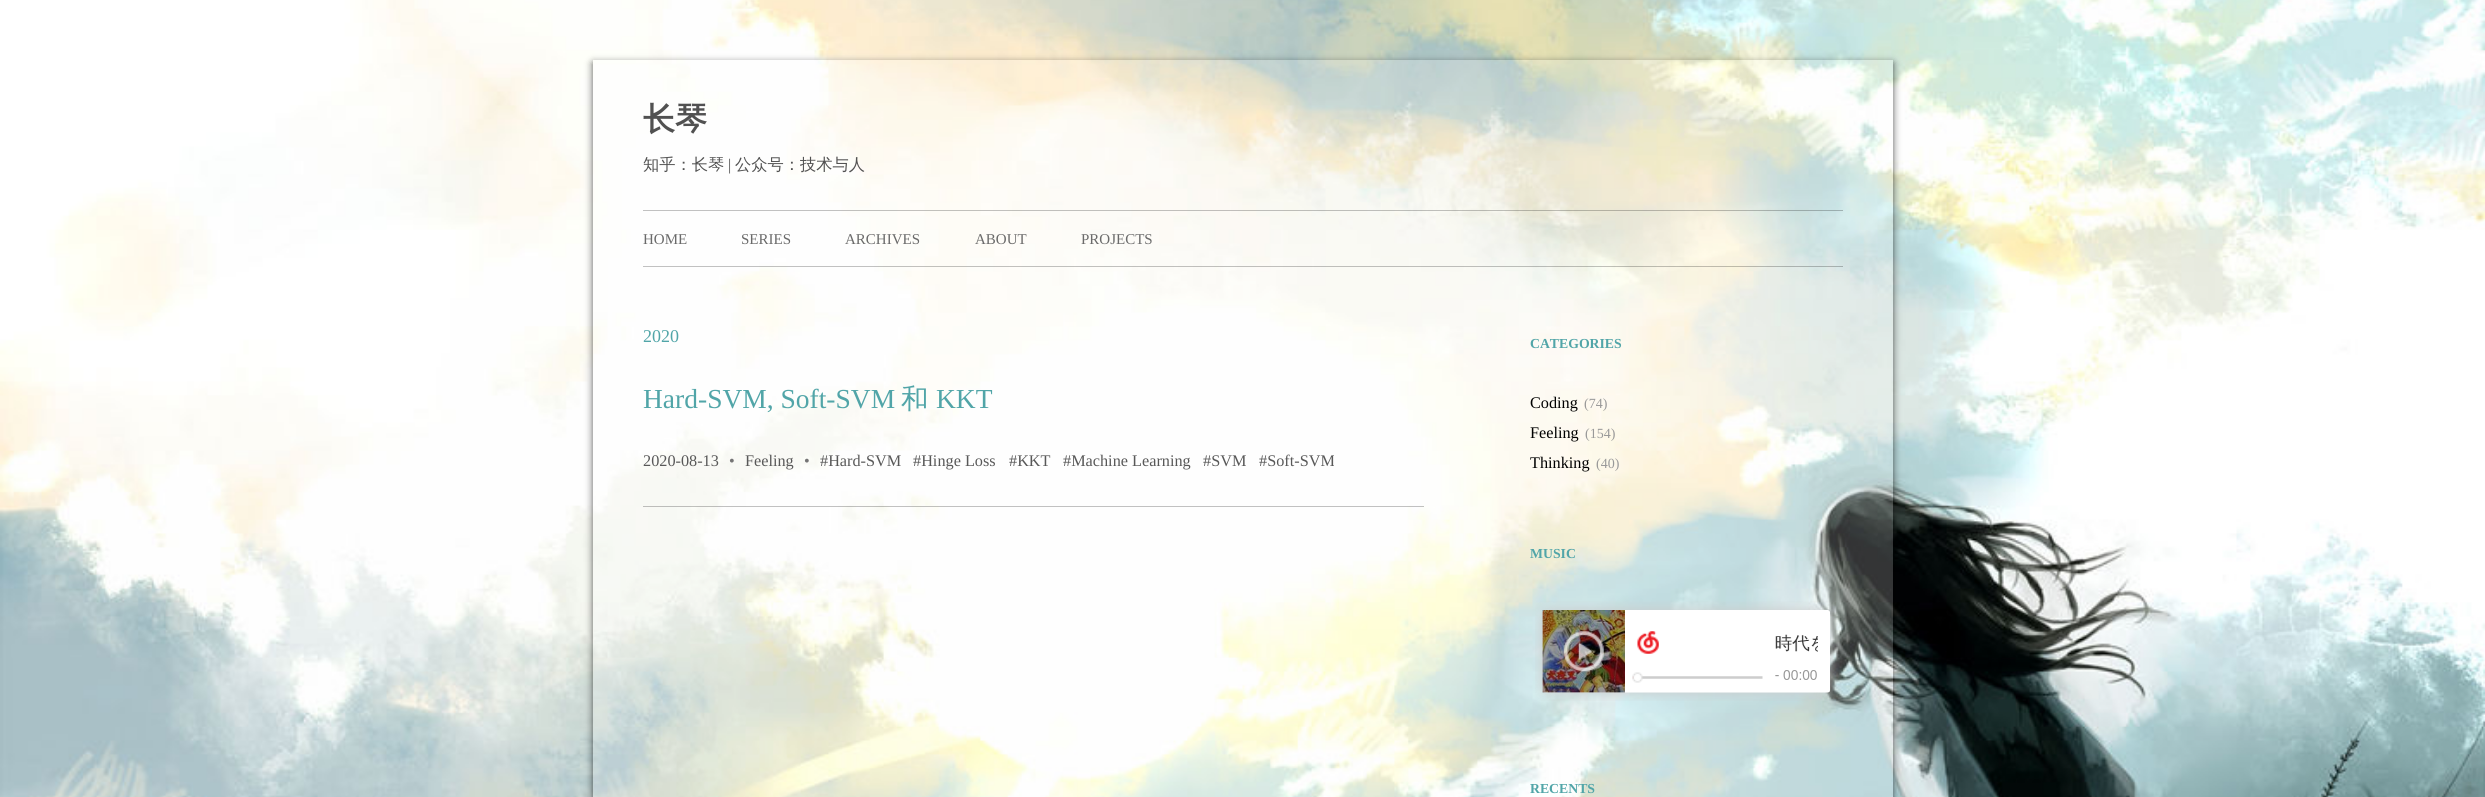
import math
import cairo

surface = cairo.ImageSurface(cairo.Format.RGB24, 2485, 797)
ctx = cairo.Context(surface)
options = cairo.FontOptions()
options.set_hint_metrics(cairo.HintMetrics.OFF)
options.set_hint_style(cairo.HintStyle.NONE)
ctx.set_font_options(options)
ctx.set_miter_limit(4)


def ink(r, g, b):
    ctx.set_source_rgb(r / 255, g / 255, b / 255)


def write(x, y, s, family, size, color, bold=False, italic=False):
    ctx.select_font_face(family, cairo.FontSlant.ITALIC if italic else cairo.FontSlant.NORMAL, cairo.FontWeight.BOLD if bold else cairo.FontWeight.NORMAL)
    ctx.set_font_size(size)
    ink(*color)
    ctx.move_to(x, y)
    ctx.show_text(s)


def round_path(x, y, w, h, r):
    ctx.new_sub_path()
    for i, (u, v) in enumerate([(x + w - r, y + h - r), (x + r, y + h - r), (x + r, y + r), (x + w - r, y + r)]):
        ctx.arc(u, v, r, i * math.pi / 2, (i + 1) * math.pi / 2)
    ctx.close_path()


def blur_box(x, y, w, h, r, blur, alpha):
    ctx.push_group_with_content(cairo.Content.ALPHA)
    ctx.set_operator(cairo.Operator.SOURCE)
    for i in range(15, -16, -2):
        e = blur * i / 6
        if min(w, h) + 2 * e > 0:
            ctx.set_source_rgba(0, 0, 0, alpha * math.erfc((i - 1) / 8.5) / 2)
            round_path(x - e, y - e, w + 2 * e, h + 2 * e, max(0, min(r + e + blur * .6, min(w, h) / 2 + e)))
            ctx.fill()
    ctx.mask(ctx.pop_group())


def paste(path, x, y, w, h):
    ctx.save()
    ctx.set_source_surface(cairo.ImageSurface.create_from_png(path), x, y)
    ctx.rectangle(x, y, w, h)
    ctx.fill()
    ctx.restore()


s1 = dict(family="WenQuanYi Zen Hei", size=32, color=(81, 81, 81), bold=True)
s2 = dict(family="WenQuanYi Zen Hei Medium", size=16.25, color=(81, 81, 81))
s3 = dict(family="Liberation Serif", size=16.25, color=(81, 81, 81))
s4 = dict(family="Liberation Serif", size=15, color=(106, 106, 106))
s5 = dict(family="Liberation Serif", size=18, color=(81, 165, 168))
s6 = dict(family="Liberation Serif", size=27.5, color=(81, 165, 168))
s7 = dict(family="WenQuanYi Zen Hei Medium", size=27.5, color=(81, 165, 168))
s8 = dict(family="Liberation Serif", size=16.25, color=(88, 88, 88))
s9 = dict(family="Liberation Serif", size=16.25, color=(117, 117, 117))
s10 = dict(family="Liberation Serif", size=13.75, color=(81, 165, 168), bold=True)
s11 = dict(family="Liberation Serif", size=16.25, color=(0, 0, 0))
s12 = dict(family="Liberation Serif", size=14, color=(153, 153, 153))

ink(255, 255, 255)
ctx.paint()
paste("pic1.png", 0, 0, 2485, 797)
ctx.save()
ctx.set_fill_rule(cairo.FillRule.EVEN_ODD)
ctx.new_path()
ctx.move_to(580, 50)
ctx.line_to(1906, 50)
ctx.line_to(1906, 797)
ctx.line_to(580, 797)
ctx.close_path()
ctx.move_to(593, 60)
ctx.line_to(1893, 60)
ctx.line_to(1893, 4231)
ctx.line_to(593, 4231)
ctx.close_path()
ctx.clip()
ink(0, 0, 0)
blur_box(593, 63, 1300, 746, 0, 4, 0.65)
ctx.restore()
ctx.set_source_rgba(1, 1, 1, 0.2)
ctx.rectangle(593, 60, 1300, 737)
ctx.fill()
write(643, 130, "长琴", **s1)
write(643, 170, "知乎：长琴", **s2)
write(728, 170, "|", **s3)
write(735, 170, "公众号：技术与人", **s2)
ctx.set_source_rgba(0, 0, 0, 0.24)
ctx.rectangle(643, 210, 1200, 1)
ctx.fill()
ctx.rectangle(643, 266, 1200, 1)
ctx.fill()
write(643, 244, "HOME", **s4)
write(741, 244, "SERIES", **s4)
write(845, 244, "ARCHIVES", **s4)
write(975, 244, "ABOUT", **s4)
write(1081, 244, "PROJECTS", **s4)
write(643, 342, "2020", **s5)
ctx.set_source_rgba(0, 0, 0, 0.24)
ctx.rectangle(643, 506, 781, 1)
ctx.fill()
write(643, 408, "Hard-SVM, Soft-SVM", **s6)
write(901, 408, "和", **s7)
write(936, 408, "KKT", **s6)
write(643, 466, "2020-08-13", **s8)
write(729, 466, "•", **s9)
write(745, 466, "Feeling", **s8)
write(804, 466, "•", **s9)
write(820, 466, "#Hard-SVM", **s8)
write(913, 466, "#Hinge Loss", **s8)
write(1009, 466, "#KKT", **s8)
write(1063, 466, "#Machine Learning", **s8)
write(1203, 466, "#SVM", **s8)
write(1259, 466, "#Soft-SVM", **s8)
write(1530, 348, "CATEGORIES", **s10)
write(1530, 408, "Coding", **s11)
write(1584, 408, "(74)", **s12)
write(1530, 438, "Feeling", **s11)
write(1585, 438, "(154)", **s12)
write(1530, 468, "Thinking", **s11)
write(1596, 468, "(40)", **s12)
write(1530, 558, "MUSIC", **s10)
paste("pic2.png", 1535, 601, 307, 100)
write(1530, 793, "RECENTS", **s10)
surface.write_to_png("screenshot.png")
